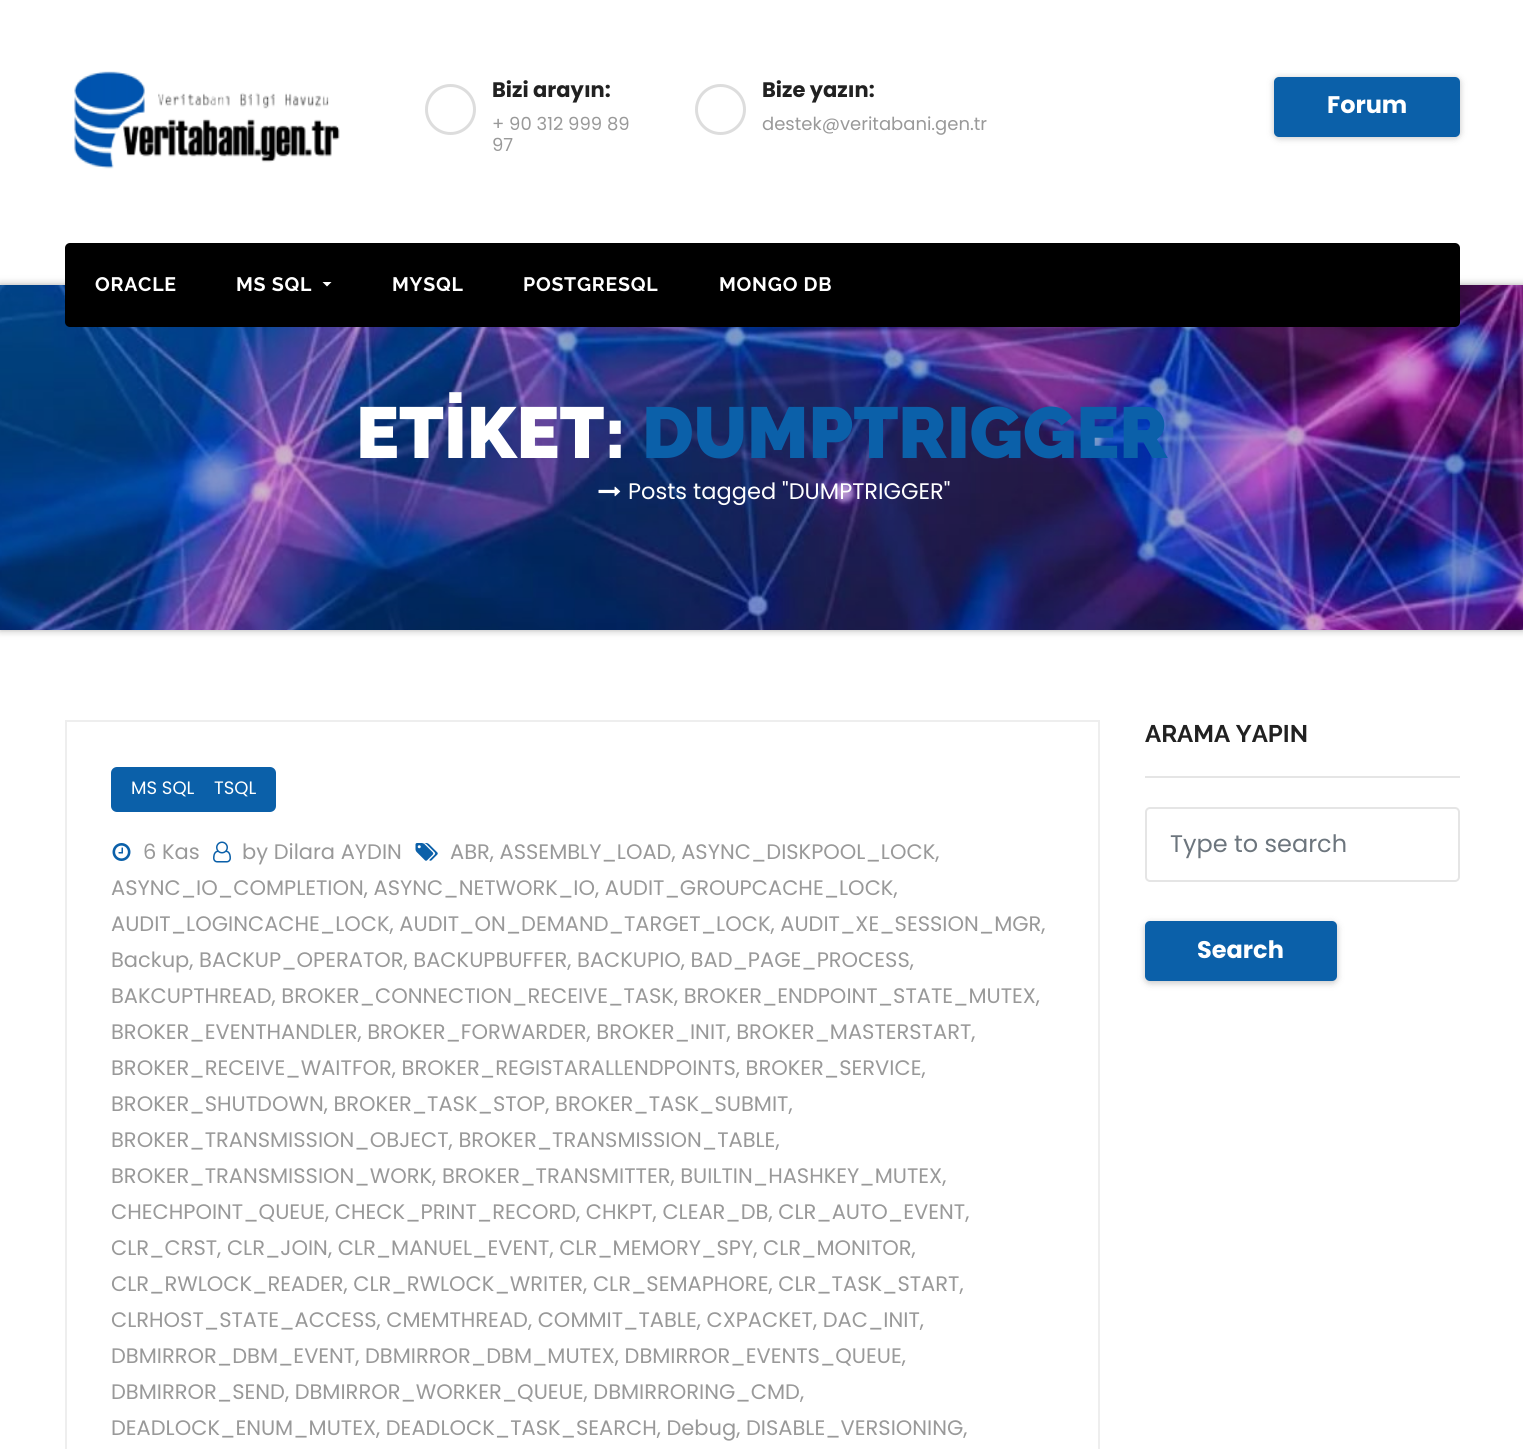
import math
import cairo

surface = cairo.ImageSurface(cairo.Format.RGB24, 1523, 1449)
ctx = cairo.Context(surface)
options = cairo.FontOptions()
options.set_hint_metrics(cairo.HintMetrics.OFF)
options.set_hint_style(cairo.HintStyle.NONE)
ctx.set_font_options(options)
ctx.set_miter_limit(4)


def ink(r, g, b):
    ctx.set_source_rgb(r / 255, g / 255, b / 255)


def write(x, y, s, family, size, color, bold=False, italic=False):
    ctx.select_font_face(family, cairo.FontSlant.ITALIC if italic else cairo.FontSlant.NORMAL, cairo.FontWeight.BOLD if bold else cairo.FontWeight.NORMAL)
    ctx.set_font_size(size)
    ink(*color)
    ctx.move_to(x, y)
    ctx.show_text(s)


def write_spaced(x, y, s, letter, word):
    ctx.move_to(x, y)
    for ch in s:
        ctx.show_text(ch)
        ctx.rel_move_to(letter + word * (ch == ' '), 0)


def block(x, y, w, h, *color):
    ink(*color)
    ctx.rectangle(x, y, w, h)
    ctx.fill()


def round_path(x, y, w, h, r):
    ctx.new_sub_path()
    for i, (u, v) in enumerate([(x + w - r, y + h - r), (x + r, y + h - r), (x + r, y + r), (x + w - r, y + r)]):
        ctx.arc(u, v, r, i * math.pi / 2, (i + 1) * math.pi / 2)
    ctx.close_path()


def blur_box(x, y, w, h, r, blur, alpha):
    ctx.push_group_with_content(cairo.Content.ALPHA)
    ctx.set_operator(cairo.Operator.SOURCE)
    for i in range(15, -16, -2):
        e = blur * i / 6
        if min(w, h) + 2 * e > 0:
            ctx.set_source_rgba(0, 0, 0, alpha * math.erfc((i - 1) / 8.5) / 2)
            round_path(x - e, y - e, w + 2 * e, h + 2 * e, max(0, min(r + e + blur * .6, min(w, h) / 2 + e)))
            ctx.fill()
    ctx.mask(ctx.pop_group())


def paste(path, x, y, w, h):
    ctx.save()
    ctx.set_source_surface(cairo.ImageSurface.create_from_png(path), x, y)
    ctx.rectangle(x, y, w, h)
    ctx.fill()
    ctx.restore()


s1 = dict(family="Poppins", size=21, color=(33, 33, 33), bold=True)
s2 = dict(family="Poppins", size=18, color=(153, 153, 153))
s3 = dict(family="Poppins", size=24, color=(255, 255, 255), bold=True)
s4 = dict(family="Raleway Black", size=72, color=(255, 255, 255))
s5 = dict(family="Raleway Black", size=72, color=(11, 96, 169))
s6 = dict(family="Poppins", size=22.5, color=(255, 255, 255))
s7 = dict(family="Poppins", size=18, color=(255, 255, 255))
s8 = dict(family="Poppins", size=21, color=(153, 153, 153))
s9 = dict(family="Raleway", size=24, color=(33, 33, 33), bold=True)
s10 = dict(family="Poppins", size=24, color=(108, 117, 125))

ink(255, 255, 255)
ctx.paint()
paste("pic1.png", 74, 71, 266, 98)
ctx.arc(450.5, 109.5, 24, 0, 2 * math.pi)
ink(221, 221, 221)
ctx.set_line_width(3)
ctx.stroke()
write(492, 97, "Bizi arayın:", **s1)
write(492, 130, "+ 90 312 999 89", **s2)
write(492, 151, "97", **s2)
ctx.new_path()
ctx.arc(720.5, 109.5, 24, 0, 2 * math.pi)
ink(221, 221, 221)
ctx.stroke()
write(762, 97, "Bize yazın:", **s1)
write(762, 130, "destek@veritabani.gen.tr", **s2)
ink(0, 0, 0)
blur_box(1274, 78, 186, 60, 5, 3, 0.12)
blur_box(1274, 78, 186, 60, 5, 4.5, 0.12)
ink(11, 96, 169)
round_path(1274, 77, 186, 60, 5)
ctx.fill()
write(1327, 113, "Forum", **s3)
ink(170, 170, 170)
blur_box(0, 285, 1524, 345, 0, 4, 1)
paste("pic2.png", 0, 285, 1523, 345)
ink(0, 0, 0)
round_path(65, 243, 1395, 84, 5)
ctx.fill()
ctx.select_font_face("Raleway", cairo.FontSlant.NORMAL, cairo.FontWeight.BOLD)
ctx.set_font_size(19.5)
ink(255, 255, 255)
write_spaced(95, 291, "ORACLE", 0.75, 0)
write_spaced(236, 291, "MS SQL", 0.75, 0)
ctx.new_path()
ctx.move_to(322.5, 282)
ctx.line_to(331.5, 282)
ctx.line_to(327, 286.5)
ctx.close_path()
ctx.fill()
write_spaced(392, 291, "MYSQL", 0.75, 0)
write_spaced(523, 291, "POSTGRESQL", 0.75, 0)
write_spaced(719, 291, "MONGO DB", 0.75, 0)
write(356, 458, "ETİKET:", **s4)
write(642, 458, "DUMPTRIGGER", **s5)
paste("pic3.png", 598, 486, 23, 11)
write(628, 499, "Posts tagged \"DUMPTRIGGER\"", **s6)
ctx.rectangle(66, 721, 1033, 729)
ink(238, 238, 238)
ctx.set_line_width(2)
ctx.stroke()
ink(11, 96, 169)
round_path(111, 767, 165, 45, 6)
ctx.fill()
write(131, 794, "MS SQL", **s7)
write(214, 794, "TSQL", **s7)
paste("pic4.png", 112, 843, 19, 18)
write(143, 859, "6 Kas", **s8)
paste("pic5.png", 213, 841, 18, 22)
write(242, 859, "by Dilara AYDIN", **s8)
paste("pic6.png", 415, 843, 23, 18)
write(450, 859, "ABR, ASSEMBLY_LOAD, ASYNC_DISKPOOL_LOCK,", **s8)
write(111, 895, "ASYNC_IO_COMPLETION, ASYNC_NETWORK_IO, AUDIT_GROUPCACHE_LOCK,", **s8)
write(111, 931, "AUDIT_LOGINCACHE_LOCK, AUDIT_ON_DEMAND_TARGET_LOCK, AUDIT_XE_SESSION_MGR,", **s8)
write(111, 967, "Backup, BACKUP_OPERATOR, BACKUPBUFFER, BACKUPIO, BAD_PAGE_PROCESS,", **s8)
write(111, 1003, "BAKCUPTHREAD, BROKER_CONNECTION_RECEIVE_TASK, BROKER_ENDPOINT_STATE_MUTEX,", **s8)
write(111, 1039, "BROKER_EVENTHANDLER, BROKER_FORWARDER, BROKER_INIT, BROKER_MASTERSTART,", **s8)
write(111, 1075, "BROKER_RECEIVE_WAITFOR, BROKER_REGISTARALLENDPOINTS, BROKER_SERVICE,", **s8)
write(111, 1111, "BROKER_SHUTDOWN, BROKER_TASK_STOP, BROKER_TASK_SUBMIT,", **s8)
write(111, 1147, "BROKER_TRANSMISSION_OBJECT, BROKER_TRANSMISSION_TABLE,", **s8)
write(111, 1183, "BROKER_TRANSMISSION_WORK, BROKER_TRANSMITTER, BUILTIN_HASHKEY_MUTEX,", **s8)
write(111, 1219, "CHECHPOINT_QUEUE, CHECK_PRINT_RECORD, CHKPT, CLEAR_DB, CLR_AUTO_EVENT,", **s8)
write(111, 1255, "CLR_CRST, CLR_JOIN, CLR_MANUEL_EVENT, CLR_MEMORY_SPY, CLR_MONITOR,", **s8)
write(111, 1291, "CLR_RWLOCK_READER, CLR_RWLOCK_WRITER, CLR_SEMAPHORE, CLR_TASK_START,", **s8)
write(111, 1327, "CLRHOST_STATE_ACCESS, CMEMTHREAD, COMMIT_TABLE, CXPACKET, DAC_INIT,", **s8)
write(111, 1363, "DBMIRROR_DBM_EVENT, DBMIRROR_DBM_MUTEX, DBMIRROR_EVENTS_QUEUE,", **s8)
write(111, 1399, "DBMIRROR_SEND, DBMIRROR_WORKER_QUEUE, DBMIRRORING_CMD,", **s8)
write(111, 1435, "DEADLOCK_ENUM_MUTEX, DEADLOCK_TASK_SEARCH, Debug, DISABLE_VERSIONING,", **s8)
block(1145, 776, 315, 2, 229, 229, 229)
write(1145, 742, "ARAMA YAPIN", **s9)
round_path(1146, 808, 313, 73, 4)
ink(229, 229, 229)
ctx.stroke()
write(1170, 852, "Type to search", **s10)
ink(0, 0, 0)
blur_box(1145, 923, 192, 60, 5, 3, 0.12)
blur_box(1145, 923, 192, 60, 5, 4.5, 0.12)
ink(11, 96, 169)
round_path(1145, 921, 192, 60, 5)
ctx.fill()
write(1197, 958, "Search", **s3)
surface.write_to_png("screenshot.png")
